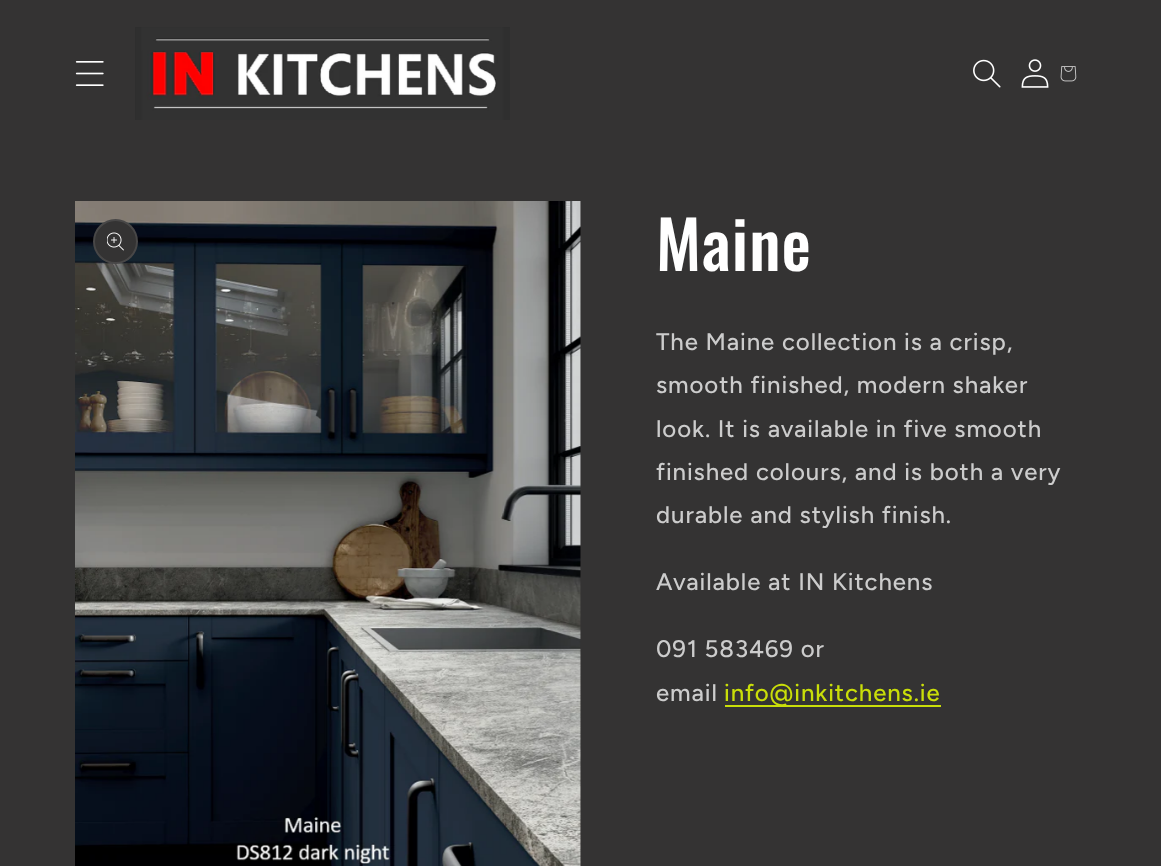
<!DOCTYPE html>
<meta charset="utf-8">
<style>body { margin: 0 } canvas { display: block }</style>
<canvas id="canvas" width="1161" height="866"></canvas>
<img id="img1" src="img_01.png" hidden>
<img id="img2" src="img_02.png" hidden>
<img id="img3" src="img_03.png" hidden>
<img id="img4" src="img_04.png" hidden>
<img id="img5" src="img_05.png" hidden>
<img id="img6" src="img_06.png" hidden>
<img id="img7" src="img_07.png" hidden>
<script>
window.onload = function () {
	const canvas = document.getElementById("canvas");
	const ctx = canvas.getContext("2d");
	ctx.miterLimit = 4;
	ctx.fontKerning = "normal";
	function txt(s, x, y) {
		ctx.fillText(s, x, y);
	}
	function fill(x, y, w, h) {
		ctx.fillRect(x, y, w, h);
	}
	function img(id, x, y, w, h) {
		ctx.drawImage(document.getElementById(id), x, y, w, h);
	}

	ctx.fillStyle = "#343333";
	fill(0, 0, 1161, 866);
	img("img1", 75, 61, 29, 25);
	img("img2", 135, 27, 375, 93);
	img("img3", 973, 59, 28, 29);
	img("img4", 1021, 59, 28, 29);
	img("img5", 1060, 66, 17, 16);
	img("img6", 75, 201, 506, 665);
	ctx.beginPath();
	ctx.arc(115.5, 241.5, 22.5, 0, Math.PI * 2);
	ctx.fill();
	ctx.beginPath();
	ctx.arc(115.5, 241.5, 21.5, 0, Math.PI * 2);
	ctx.strokeStyle = "rgba(255, 255, 255, 0.1)";
	ctx.lineWidth = 2;
	ctx.stroke();
	img("img7", 107, 232, 17, 19);
	ctx.fillStyle = "#C9DE09";
	fill(725, 705, 216, 2);
	ctx.letterSpacing = "1px";
	ctx.font = "500 66px Oswald";
	ctx.fillStyle = "#FFFFFF";
	txt("Maine", 656, 271);
	ctx.letterSpacing = "0.9px";
	ctx.font = "500 24px Figtree";
	ctx.fillStyle = "#CCCCCC";
	txt("The Maine collection is a crisp,", 656, 350);
	txt("smooth finished, modern shaker", 656, 393);
	txt("look. It is available in five smooth", 656, 437);
	txt("finished colours, and is both a very", 656, 480);
	txt("durable and stylish finish.", 656, 523);
	txt("Available at IN Kitchens", 656, 590);
	txt("091 583469 or", 656, 657);
	txt("email", 656, 701);
	ctx.fillStyle = "#C9DE09";
	txt("info@inkitchens.ie", 724, 701);
};
</script>
